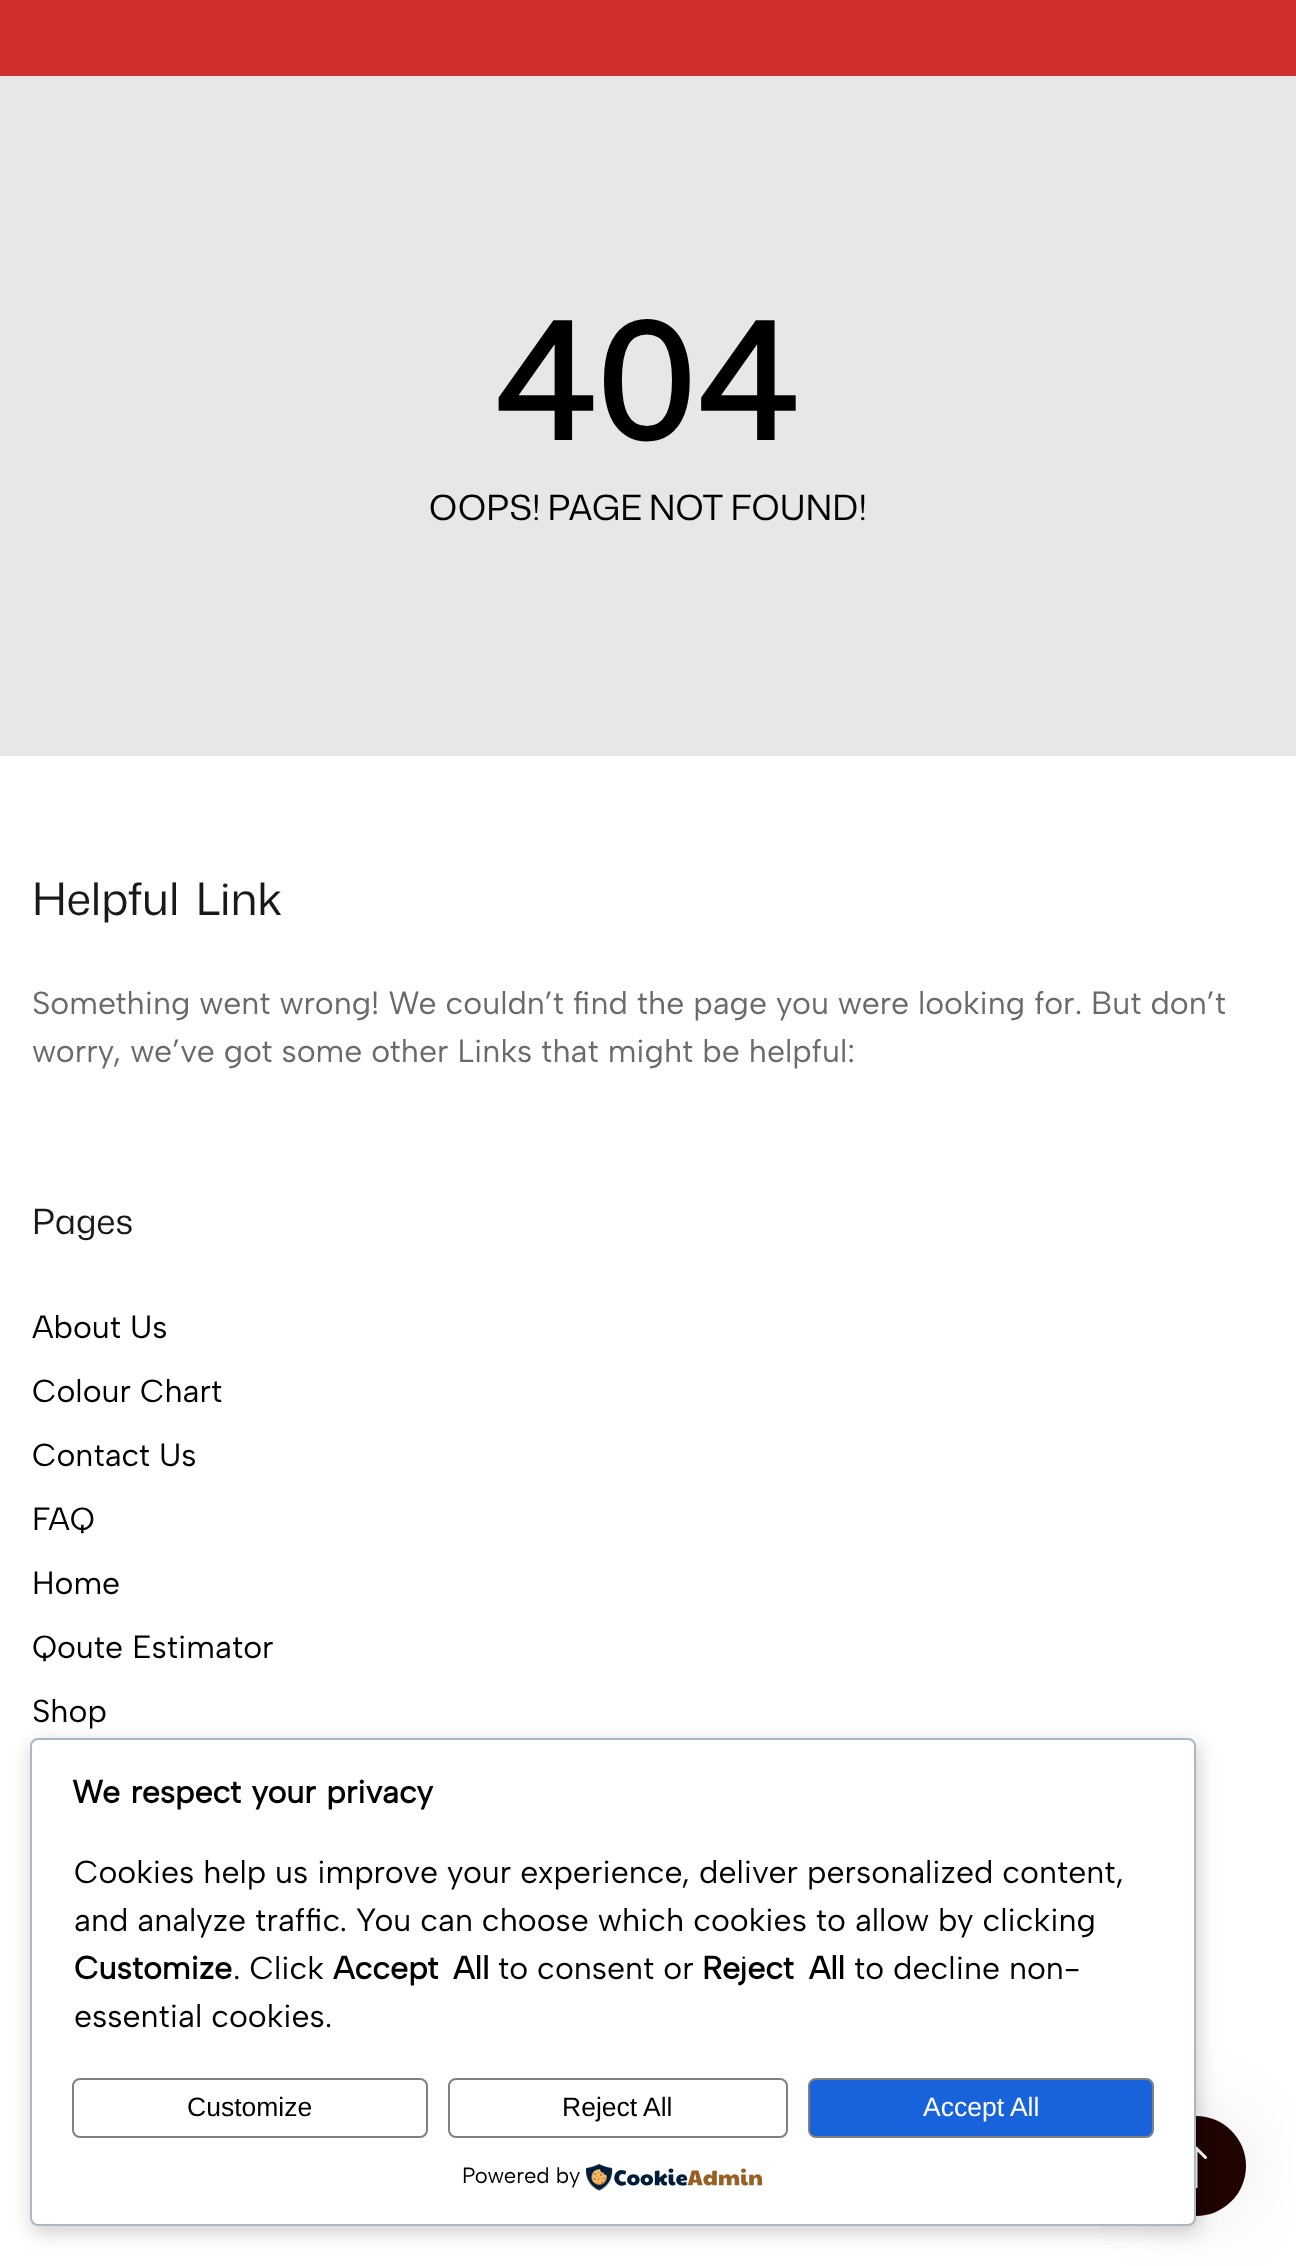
<!DOCTYPE html>
<meta charset="utf-8">
<style>body { margin: 0 } canvas { display: block }</style>
<canvas id="canvas" width="1296" height="2266"></canvas>
<img id="img1" src="img_01.png" hidden>
<img id="img2" src="img_02.png" hidden>
<script>
window.onload = function () {
	const canvas = document.getElementById("canvas");
	const ctx = canvas.getContext("2d");
	ctx.miterLimit = 4;
	ctx.fontKerning = "normal";
	function txt(s, x, y) {
		ctx.fillText(s, x, y);
	}
	function fill(x, y, w, h) {
		ctx.fillRect(x, y, w, h);
	}
	function img(id, x, y, w, h) {
		ctx.drawImage(document.getElementById(id), x, y, w, h);
	}

	ctx.fillStyle = "#FFFFFF";
	fill(0, 0, 1296, 2266);
	ctx.fillStyle = "#CF2E2E";
	fill(0, 0, 1296, 76);
	ctx.fillStyle = "#E9E7E6";
	fill(0, 76, 1296, 680);
	ctx.fillStyle = "rgba(0, 0, 0, 0.09)";
	ctx.filter = "blur(40px)";
	ctx.beginPath();
	ctx.roundRect(1146, 2116, 100, 100, 50);
	ctx.fill();
	ctx.filter = "none";
	ctx.fillStyle = "#1F0401";
	ctx.beginPath();
	ctx.arc(1196, 2166, 50, 0, Math.PI * 2);
	ctx.fill();
	img("img1", 1196, 2146, 11, 42);
	ctx.fillStyle = "rgba(0, 0, 0, 0.2)";
	ctx.filter = "blur(10px)";
	ctx.beginPath();
	ctx.roundRect(32, 1744, 1166, 488, 8);
	ctx.fill();
	ctx.filter = "none";
	ctx.fillStyle = "#FFFFFF";
	ctx.beginPath();
	ctx.roundRect(31, 1739, 1164, 486, 7);
	ctx.fill();
	ctx.strokeStyle = "#ABB8C3";
	ctx.lineWidth = 2;
	ctx.stroke();
	ctx.beginPath();
	ctx.roundRect(73, 2079, 354, 58, 7);
	ctx.strokeStyle = "#808080";
	ctx.stroke();
	ctx.beginPath();
	ctx.roundRect(449, 2079, 338, 58, 7);
	ctx.stroke();
	ctx.fillStyle = "#1863DC";
	ctx.beginPath();
	ctx.roundRect(809, 2079, 344, 58, 7);
	ctx.fill();
	ctx.stroke();
	img("img2", 586, 2164, 177, 27);
	ctx.font = "bold 160px Mona Sans";
	ctx.fillStyle = "#000000";
	txt("404", 494, 440);
	ctx.wordSpacing = "-1px";
	ctx.font = "34.75px Mona Sans";
	txt("OOPS! PAGE NOT FOUND!", 429, 520);
	ctx.wordSpacing = "6px";
	ctx.font = "44.75px Mona Sans";
	ctx.fillStyle = "#18191B";
	txt("Helpful Link", 32, 915);
	ctx.wordSpacing = "0px";
	ctx.font = "32px Albert Sans";
	ctx.fillStyle = "#6A6A6A";
	txt("Something went wrong! We couldn’t find the page you were looking for. But don’t", 32, 1014);
	txt("worry, we’ve got some other Links that might be helpful:", 32, 1062);
	ctx.font = "34.75px Mona Sans";
	ctx.fillStyle = "#18191B";
	txt("Pages", 32, 1234);
	ctx.font = "32px Albert Sans";
	ctx.fillStyle = "#000000";
	txt("About Us", 32, 1338);
	txt("Colour Chart", 32, 1402);
	txt("Contact Us", 32, 1466);
	txt("FAQ", 32, 1530);
	txt("Home", 32, 1594);
	txt("Qoute Estimator", 32, 1658);
	txt("Shop", 32, 1722);
	ctx.wordSpacing = "1.5px";
	ctx.font = "bold 32px Albert Sans";
	txt("We respect your privacy", 72, 1803);
	ctx.wordSpacing = "0px";
	ctx.font = "32px Albert Sans";
	txt("Cookies help us improve your experience, deliver personalized content,", 74, 1883);
	txt("and analyze traffic. You can choose which cookies to allow by clicking", 74, 1931);
	ctx.font = "bold 32px Albert Sans";
	txt("Customize", 74, 1979);
	ctx.font = "32px Albert Sans";
	txt(". Click", 233, 1979);
	ctx.wordSpacing = "6px";
	ctx.font = "bold 32px Albert Sans";
	txt("Accept All", 333, 1979);
	ctx.wordSpacing = "0px";
	ctx.font = "32px Albert Sans";
	txt("to consent or", 498, 1979);
	ctx.wordSpacing = "6px";
	ctx.font = "bold 32px Albert Sans";
	txt("Reject All", 702, 1979);
	ctx.wordSpacing = "0px";
	ctx.font = "32px Albert Sans";
	txt("to decline non-", 854, 1979);
	txt("essential cookies.", 74, 2027);
	ctx.font = "26.5px Liberation Sans";
	txt("Customize", 187, 2116);
	txt("Reject All", 562, 2116);
	ctx.fillStyle = "#FFFFFF";
	txt("Accept All", 923, 2116);
	ctx.font = "22px Albert Sans";
	ctx.fillStyle = "#000000";
	txt("Powered by", 462, 2183);
};
</script>
